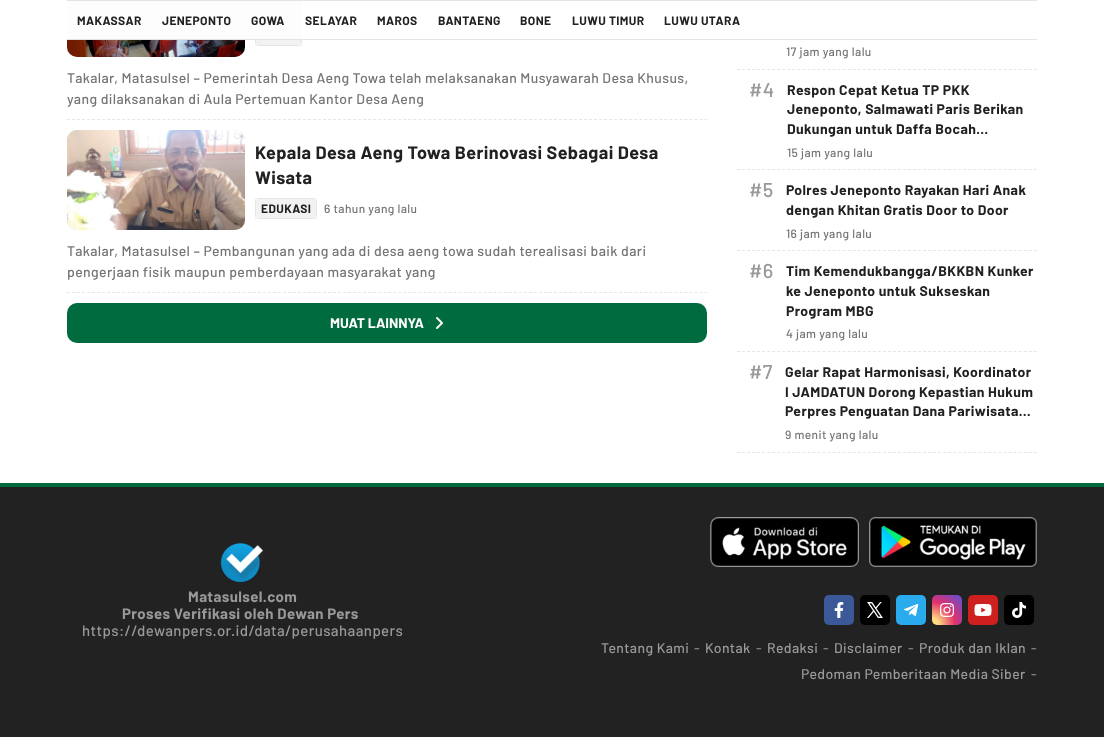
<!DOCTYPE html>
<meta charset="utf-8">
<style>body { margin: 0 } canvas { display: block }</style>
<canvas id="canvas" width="1104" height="737"></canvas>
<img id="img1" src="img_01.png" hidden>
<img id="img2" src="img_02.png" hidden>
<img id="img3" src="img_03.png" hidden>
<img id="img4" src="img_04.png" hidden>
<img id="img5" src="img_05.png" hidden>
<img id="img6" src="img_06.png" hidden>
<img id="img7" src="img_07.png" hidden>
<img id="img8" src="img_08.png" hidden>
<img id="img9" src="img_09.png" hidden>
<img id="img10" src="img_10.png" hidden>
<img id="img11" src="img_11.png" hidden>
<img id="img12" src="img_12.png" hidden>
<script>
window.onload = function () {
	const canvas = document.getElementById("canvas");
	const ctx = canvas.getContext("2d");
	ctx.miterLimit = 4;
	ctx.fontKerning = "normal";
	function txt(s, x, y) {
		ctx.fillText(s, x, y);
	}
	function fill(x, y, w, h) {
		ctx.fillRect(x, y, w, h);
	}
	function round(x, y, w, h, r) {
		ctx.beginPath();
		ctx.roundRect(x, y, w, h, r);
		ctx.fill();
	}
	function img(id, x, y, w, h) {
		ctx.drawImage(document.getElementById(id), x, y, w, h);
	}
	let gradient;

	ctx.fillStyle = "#FFFFFF";
	fill(0, 0, 1104, 737);
	ctx.fillStyle = "#DDDDDD";
	round(67, -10, 178, 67, 10);
	ctx.fillStyle = "#F2F2F2";
	round(255, 25, 47, 21, 5);
	ctx.strokeStyle = "rgba(0, 0, 0, 0.05)";
	ctx.strokeRect(255.5, 25.5, 46, 20);
	ctx.fillStyle = "#FDFDFD";
	fill(67, 1, 235, 38);
	ctx.fillStyle = "#E4E4E4";
	fill(67, 0, 970, 1);
	fill(67, 39, 970, 1);
	ctx.beginPath();
	ctx.moveTo(67, 119.5);
	ctx.lineTo(707, 119.5);
	ctx.strokeStyle = "#E6E6E6";
	ctx.setLineDash([3, 2.02]);
	ctx.stroke();
	img("img1", 67, 40, 178, 17);
	ctx.beginPath();
	ctx.moveTo(67, 292.5);
	ctx.lineTo(707, 292.5);
	ctx.stroke();
	ctx.fillStyle = "#DDDDDD";
	round(67, 130, 178, 100, 10);
	img("img2", 67, 130, 178, 100);
	ctx.fillStyle = "#F2F2F2";
	round(255, 198, 62, 21, 5);
	ctx.strokeStyle = "rgba(0, 0, 0, 0.05)";
	ctx.setLineDash([]);
	ctx.strokeRect(255.5, 198.5, 61, 20);
	ctx.fillStyle = "#006B3E";
	round(67, 303, 640, 40, 10);
	img("img3", 436, 317, 7, 12);
	ctx.beginPath();
	ctx.moveTo(737, 69.5);
	ctx.lineTo(1037, 69.5);
	ctx.strokeStyle = "#E6E6E6";
	ctx.setLineDash([3, 2.03]);
	ctx.stroke();
	ctx.beginPath();
	ctx.moveTo(737, 169.5);
	ctx.lineTo(1037, 169.5);
	ctx.stroke();
	ctx.beginPath();
	ctx.moveTo(737, 250.5);
	ctx.lineTo(1037, 250.5);
	ctx.stroke();
	ctx.beginPath();
	ctx.moveTo(737, 351.5);
	ctx.lineTo(1037, 351.5);
	ctx.stroke();
	ctx.beginPath();
	ctx.moveTo(737, 452.5);
	ctx.lineTo(1037, 452.5);
	ctx.stroke();
	ctx.fillStyle = "#222222";
	fill(0, 487, 1104, 250);
	ctx.fillStyle = "#006B3E";
	fill(0, 483, 1104, 4);
	img("img4", 220, 543, 44, 40);
	img("img5", 710, 517, 149, 50);
	img("img6", 869, 517, 168, 50);
	ctx.fillStyle = "#3B5998";
	round(824, 595, 30, 30, 5);
	img("img7", 834, 602, 10, 16);
	ctx.fillStyle = "#000000";
	round(860, 595, 30, 30, 5);
	img("img8", 867, 602, 16, 16);
	ctx.fillStyle = "#2AABEE";
	round(896, 595, 30, 30, 5);
	img("img9", 903, 604, 16, 12);
	gradient = ctx.createRadialGradient(932, 625, 0, 932, 625, 42);
	gradient.addColorStop(0.15, "#FFDC80");
	gradient.addColorStop(0.55, "#E1306C");
	gradient.addColorStop(1, "#5851DB");
	ctx.fillStyle = gradient;
	round(932, 595, 30, 30, 5);
	img("img10", 940, 603, 14, 14);
	ctx.fillStyle = "#CD201F";
	round(968, 595, 30, 30, 5);
	img("img11", 974, 604, 18, 12);
	ctx.fillStyle = "#000000";
	round(1004, 595, 30, 30, 5);
	img("img12", 1012, 602, 14, 16);
	ctx.letterSpacing = "0.4px";
	ctx.font = "bold 12px Barlow";
	ctx.fillStyle = "#212121";
	txt("MAKASSAR", 77, 25);
	txt("JENEPONTO", 162, 25);
	txt("GOWA", 251, 25);
	txt("SELAYAR", 305, 25);
	txt("MAROS", 377, 25);
	txt("BANTAENG", 438, 25);
	txt("BONE", 520, 25);
	txt("LUWU TIMUR", 572, 25);
	txt("LUWU UTARA", 664, 25);
	ctx.font = "500 14px Barlow";
	ctx.fillStyle = "#757575";
	txt("Takalar, Matasulsel – Pemerintah Desa Aeng Towa telah melaksanakan Musyawarah Desa Khusus,", 67, 83);
	txt("yang dilaksanakan di Aula Pertemuan Kantor Desa Aeng", 67, 104);
	ctx.font = "bold 18px Barlow";
	ctx.fillStyle = "#212121";
	txt("Kepala Desa Aeng Towa Berinovasi Sebagai Desa", 255, 159);
	txt("Wisata", 255, 184);
	ctx.font = "bold 12px Barlow";
	txt("EDUKASI", 261, 213);
	ctx.font = "500 12px Barlow";
	ctx.fillStyle = "#757575";
	txt("6 tahun yang lalu", 324, 213);
	ctx.font = "500 14px Barlow";
	txt("Takalar, Matasulsel – Pembangunan yang ada di desa aeng towa sudah terealisasi baik dari", 67, 256);
	txt("pengerjaan fisik maupun pemberdayaan masyarakat yang", 67, 277);
	ctx.letterSpacing = "0px";
	ctx.font = "bold 14px Barlow";
	ctx.fillStyle = "#FDFDFD";
	txt("MUAT LAINNYA", 330, 328);
	ctx.letterSpacing = "0.4px";
	ctx.font = "500 12px Barlow";
	ctx.fillStyle = "#757575";
	txt("17 jam yang lalu", 786, 56);
	ctx.font = "500 20px Barlow";
	ctx.fillStyle = "#999999";
	txt("#4", 749, 97);
	ctx.font = "bold 14px Barlow";
	ctx.fillStyle = "#212121";
	txt("Respon Cepat Ketua TP PKK", 787, 95);
	txt("Jeneponto, Salmawati Paris Berikan", 787, 114);
	txt("Dukungan untuk Daffa Bocah…", 787, 134);
	ctx.font = "500 12px Barlow";
	ctx.fillStyle = "#757575";
	txt("15 jam yang lalu", 787, 157);
	ctx.font = "500 20px Barlow";
	ctx.fillStyle = "#999999";
	txt("#5", 749, 197);
	ctx.font = "bold 14px Barlow";
	ctx.fillStyle = "#212121";
	txt("Polres Jeneponto Rayakan Hari Anak", 786, 195);
	txt("dengan Khitan Gratis Door to Door", 786, 215);
	ctx.font = "500 12px Barlow";
	ctx.fillStyle = "#757575";
	txt("16 jam yang lalu", 786, 238);
	ctx.font = "500 20px Barlow";
	ctx.fillStyle = "#999999";
	txt("#6", 749, 278);
	ctx.font = "bold 14px Barlow";
	ctx.fillStyle = "#212121";
	txt("Tim Kemendukbangga/BKKBN Kunker", 786, 276);
	txt("ke Jeneponto untuk Sukseskan", 786, 296);
	txt("Program MBG", 786, 316);
	ctx.font = "500 12px Barlow";
	ctx.fillStyle = "#757575";
	txt("4 jam yang lalu", 786, 338);
	ctx.font = "500 20px Barlow";
	ctx.fillStyle = "#999999";
	txt("#7", 749, 379);
	ctx.font = "bold 14px Barlow";
	ctx.fillStyle = "#212121";
	txt("Gelar Rapat Harmonisasi, Koordinator", 785, 377);
	txt("I JAMDATUN Dorong Kepastian Hukum", 785, 397);
	txt("Perpres Penguatan Dana Pariwisata…", 785, 416);
	ctx.font = "500 12px Barlow";
	ctx.fillStyle = "#757575";
	txt("9 menit yang lalu", 785, 439);
	ctx.font = "bold 15px Barlow";
	ctx.fillStyle = "#999999";
	txt("Matasulsel.com", 188, 602);
	txt("Proses Verifikasi oleh Dewan Pers", 122, 619);
	ctx.font = "500 15px Barlow";
	txt("https://dewanpers.or.id/data/perusahaanpers", 82, 636);
	ctx.font = "500 14px Barlow";
	txt("Tentang Kami", 601, 653);
	txt("-", 694, 653);
	txt("Kontak", 705, 653);
	txt("-", 756, 653);
	txt("Redaksi", 767, 653);
	txt("-", 823, 653);
	txt("Disclaimer", 834, 653);
	txt("-", 908, 653);
	txt("Produk dan Iklan", 919, 653);
	txt("-", 1031, 653);
	txt("Pedoman Pemberitaan Media Siber", 801, 679);
	txt("-", 1031, 679);
};
</script>
